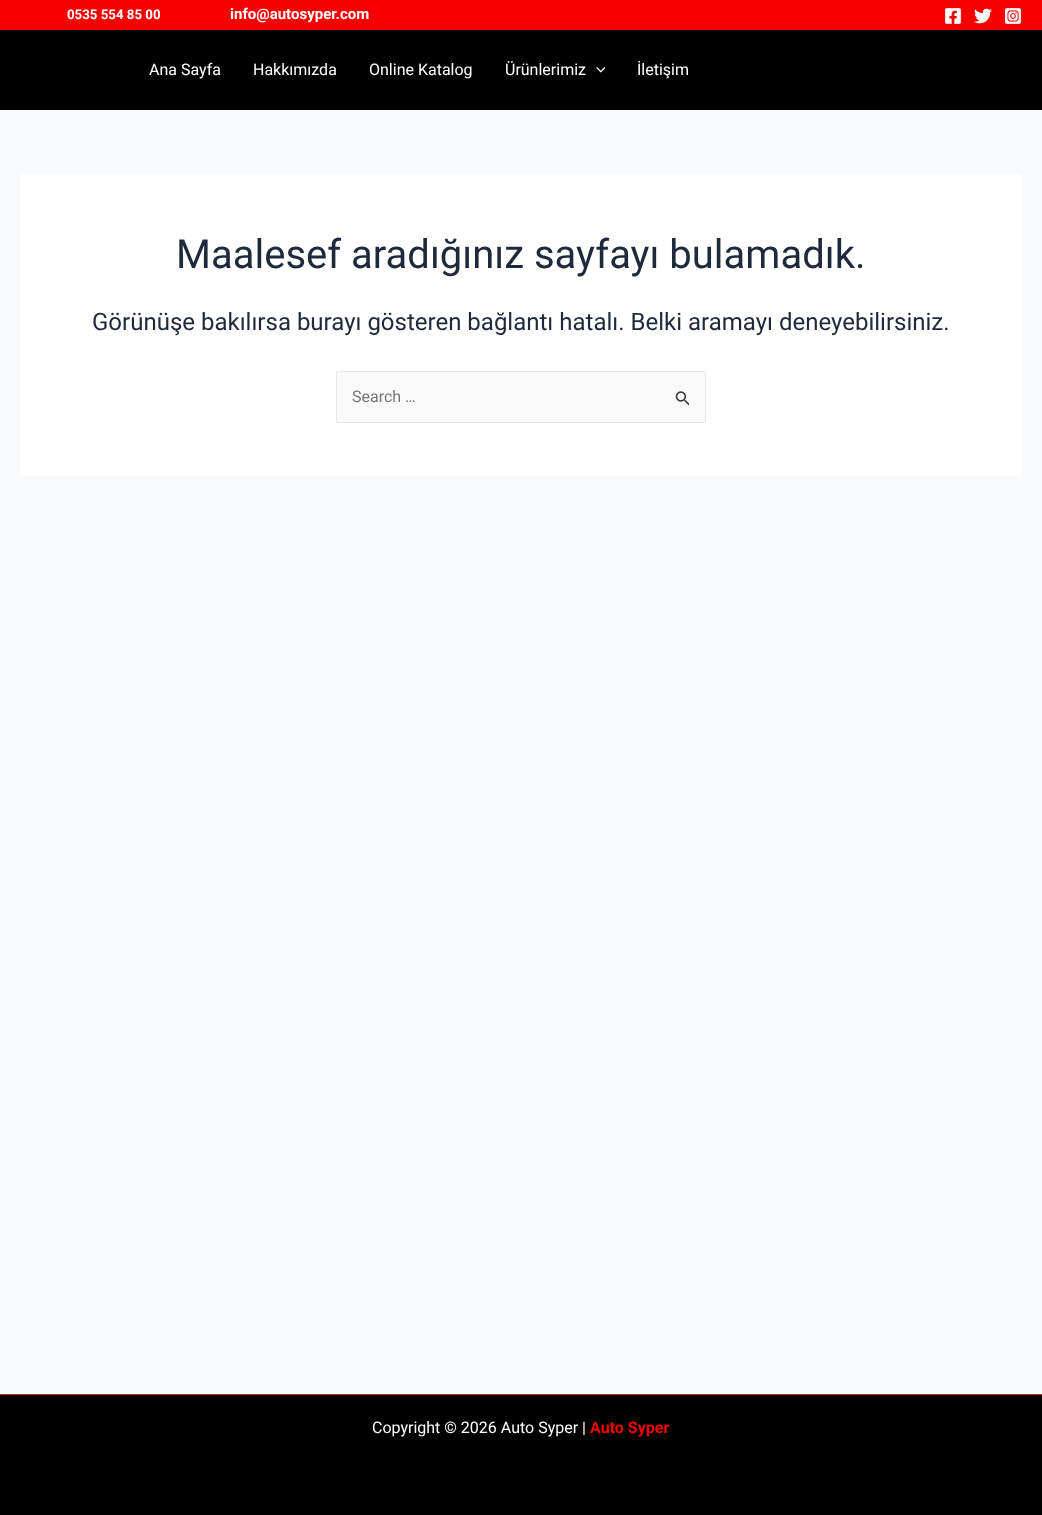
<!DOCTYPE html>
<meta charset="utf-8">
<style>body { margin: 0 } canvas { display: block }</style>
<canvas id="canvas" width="1042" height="1515"></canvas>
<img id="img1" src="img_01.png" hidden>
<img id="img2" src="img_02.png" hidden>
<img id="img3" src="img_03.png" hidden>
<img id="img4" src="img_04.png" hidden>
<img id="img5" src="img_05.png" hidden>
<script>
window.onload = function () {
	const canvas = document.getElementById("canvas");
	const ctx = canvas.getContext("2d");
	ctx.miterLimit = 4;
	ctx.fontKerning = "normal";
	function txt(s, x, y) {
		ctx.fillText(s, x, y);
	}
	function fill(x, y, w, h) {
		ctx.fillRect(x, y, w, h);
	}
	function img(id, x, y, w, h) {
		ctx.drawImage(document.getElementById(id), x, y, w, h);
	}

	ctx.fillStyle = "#F9FAFB";
	fill(0, 0, 1042, 1515);
	ctx.fillStyle = "#F70000";
	fill(0, 0, 1042, 30);
	img("img1", 945, 8, 16, 16);
	img("img2", 974, 8, 18, 16);
	img("img3", 1005, 8, 16, 16);
	ctx.fillStyle = "#000000";
	fill(0, 30, 1042, 80);
	img("img4", 596, 67, 9, 6);
	ctx.fillStyle = "#FFFFFF";
	fill(20, 174, 1002, 302);
	ctx.fillStyle = "#FAFAFA";
	ctx.beginPath();
	ctx.roundRect(336.5, 371.5, 369, 51, 1.5);
	ctx.fill();
	ctx.strokeStyle = "#E2E8F0";
	ctx.stroke();
	img("img5", 675, 391, 14, 15);
	ctx.fillStyle = "#000000";
	fill(0, 1395, 1042, 120);
	ctx.fillStyle = "#D12704";
	fill(0, 1394, 1042, 1);
	ctx.font = "bold 13.25px Roboto";
	ctx.fillStyle = "#FFFFFF";
	txt("0535 554 85 00", 67, 19);
	ctx.font = "bold 15px Roboto";
	txt("info@autosyper.com", 230, 19);
	ctx.font = "16px Roboto";
	txt("Ana Sayfa", 149, 75);
	txt("Hakkımızda", 253, 75);
	txt("Online Katalog", 369, 75);
	txt("Ürünlerimiz", 505, 75);
	txt("İletişim", 637, 75);
	ctx.font = "40px Roboto";
	ctx.fillStyle = "#1E293B";
	txt("Maalesef aradığınız sayfayı bulamadık.", 176, 268);
	ctx.font = "24px Roboto";
	txt("Görünüşe bakılırsa burayı gösteren bağlantı hatalı. Belki aramayı deneyebilirsiniz.", 92, 330);
	ctx.font = "16px Roboto";
	ctx.fillStyle = "#757575";
	txt("Search …", 352, 402);
	ctx.fillStyle = "#FFFFFF";
	txt("Copyright © 2026 Auto Syper |", 372, 1433);
	ctx.font = "bold 16px Roboto";
	ctx.fillStyle = "#F70000";
	txt("Auto Syper", 590, 1433);
};
</script>
